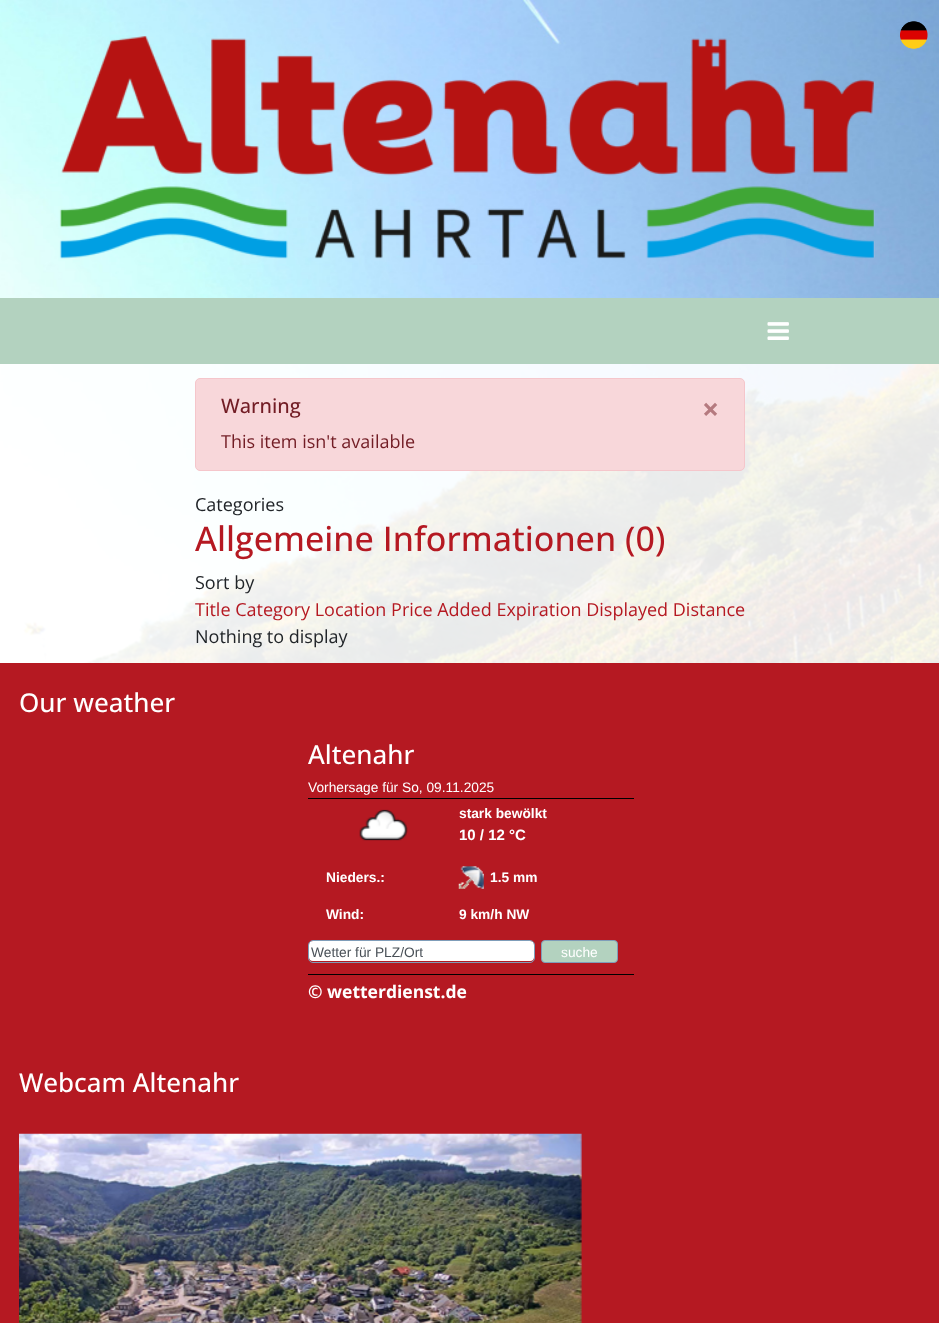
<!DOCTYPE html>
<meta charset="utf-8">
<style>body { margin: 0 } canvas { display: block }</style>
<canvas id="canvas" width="939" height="1323"></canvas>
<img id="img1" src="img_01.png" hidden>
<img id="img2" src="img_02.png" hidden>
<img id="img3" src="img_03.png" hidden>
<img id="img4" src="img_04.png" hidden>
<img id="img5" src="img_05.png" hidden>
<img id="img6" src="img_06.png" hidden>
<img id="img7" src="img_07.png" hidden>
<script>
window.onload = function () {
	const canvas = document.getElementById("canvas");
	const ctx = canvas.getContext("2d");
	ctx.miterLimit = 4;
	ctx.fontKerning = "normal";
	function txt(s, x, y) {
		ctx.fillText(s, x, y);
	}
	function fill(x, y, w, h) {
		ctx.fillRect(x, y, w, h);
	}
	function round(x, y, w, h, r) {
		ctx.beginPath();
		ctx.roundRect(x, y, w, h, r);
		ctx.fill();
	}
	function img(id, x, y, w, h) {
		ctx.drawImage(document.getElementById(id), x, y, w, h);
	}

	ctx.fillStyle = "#FFFFFF";
	fill(0, 0, 939, 1323);
	img("img1", 0, 0, 939, 663);
	ctx.fillStyle = "#B3D2BF";
	fill(0, 298, 939, 66);
	img("img2", 900, 21, 28, 28);
	img("img3", 767, 322, 22, 18);
	img("img4", 59, 36, 816, 223);
	ctx.fillStyle = "rgba(255, 255, 255, 0.9)";
	fill(0, 364, 939, 1);
	fill(0, 365, 939, 298);
	ctx.fillStyle = "#F8D7DA";
	ctx.beginPath();
	ctx.roundRect(195.5, 378.5, 549, 92, 4.5);
	ctx.fill();
	ctx.strokeStyle = "#F5C6CB";
	ctx.stroke();
	ctx.fillStyle = "#B51922";
	fill(0, 663, 939, 660);
	ctx.fillStyle = "#000000";
	fill(308, 798, 326, 1);
	img("img5", 359, 809, 49, 32);
	img("img6", 458, 866, 26, 23);
	ctx.fillStyle = "#FFFFFF";
	round(309, 941, 225, 20, 4);
	ctx.beginPath();
	ctx.roundRect(308.5, 940.5, 226, 22, 4.5);
	ctx.strokeStyle = "#7F9DB9";
	ctx.stroke();
	ctx.fillStyle = "#B3D2BF";
	ctx.beginPath();
	ctx.roundRect(541.5, 940.5, 76, 22, 3.5);
	ctx.fill();
	ctx.stroke();
	ctx.fillStyle = "#000000";
	fill(308, 974, 326, 1);
	img("img7", 19, 1133, 563, 190);
	ctx.font = "500 20px Open Sans";
	ctx.fillStyle = "#721C24";
	txt("Warning", 221, 413);
	ctx.font = "bold 30px Open Sans";
	ctx.fillStyle = "#B57A7F";
	txt("×", 702, 420);
	ctx.font = "18px Open Sans";
	ctx.fillStyle = "#721C24";
	txt("This item isn't available", 221, 448);
	ctx.fillStyle = "#212529";
	txt("Categories", 195, 511);
	ctx.font = "500 34px Open Sans";
	ctx.fillStyle = "#B51922";
	txt("Allgemeine Informationen (0)", 195, 551);
	ctx.font = "18px Open Sans";
	ctx.fillStyle = "#212529";
	txt("Sort by", 195, 589);
	ctx.fillStyle = "#B51922";
	txt("Title Category Location Price Added Expiration Displayed Distance", 195, 616);
	ctx.fillStyle = "#212529";
	txt("Nothing to display", 195, 643);
	ctx.font = "500 26px Open Sans";
	ctx.fillStyle = "#FFFFFF";
	txt("Our weather", 19, 712);
	txt("Altenahr", 308, 764);
	ctx.font = "13.75px Liberation Sans";
	txt("Vorhersage für So, 09.11.2025", 308, 792);
	ctx.font = "bold 13.75px Liberation Sans";
	txt("stark bewölkt", 459, 818);
	ctx.font = "bold 15px Liberation Sans";
	txt("10 / 12 °C", 459, 840);
	ctx.font = "bold 13.75px Liberation Sans";
	txt("Nieders.:", 326, 882);
	txt("1.5 mm", 490, 882);
	txt("Wind:", 326, 919);
	txt("9 km/h NW", 459, 919);
	ctx.font = "13.75px Liberation Sans";
	ctx.fillStyle = "#495057";
	txt("Wetter für PLZ/Ort", 311, 957);
	ctx.fillStyle = "#FFFFFF";
	txt("suche", 561, 957);
	ctx.font = "bold 17.5px Open Sans";
	txt("© wetterdienst.de", 308, 998);
	ctx.font = "500 26px Open Sans";
	txt("Webcam Altenahr", 19, 1092);
};
</script>
